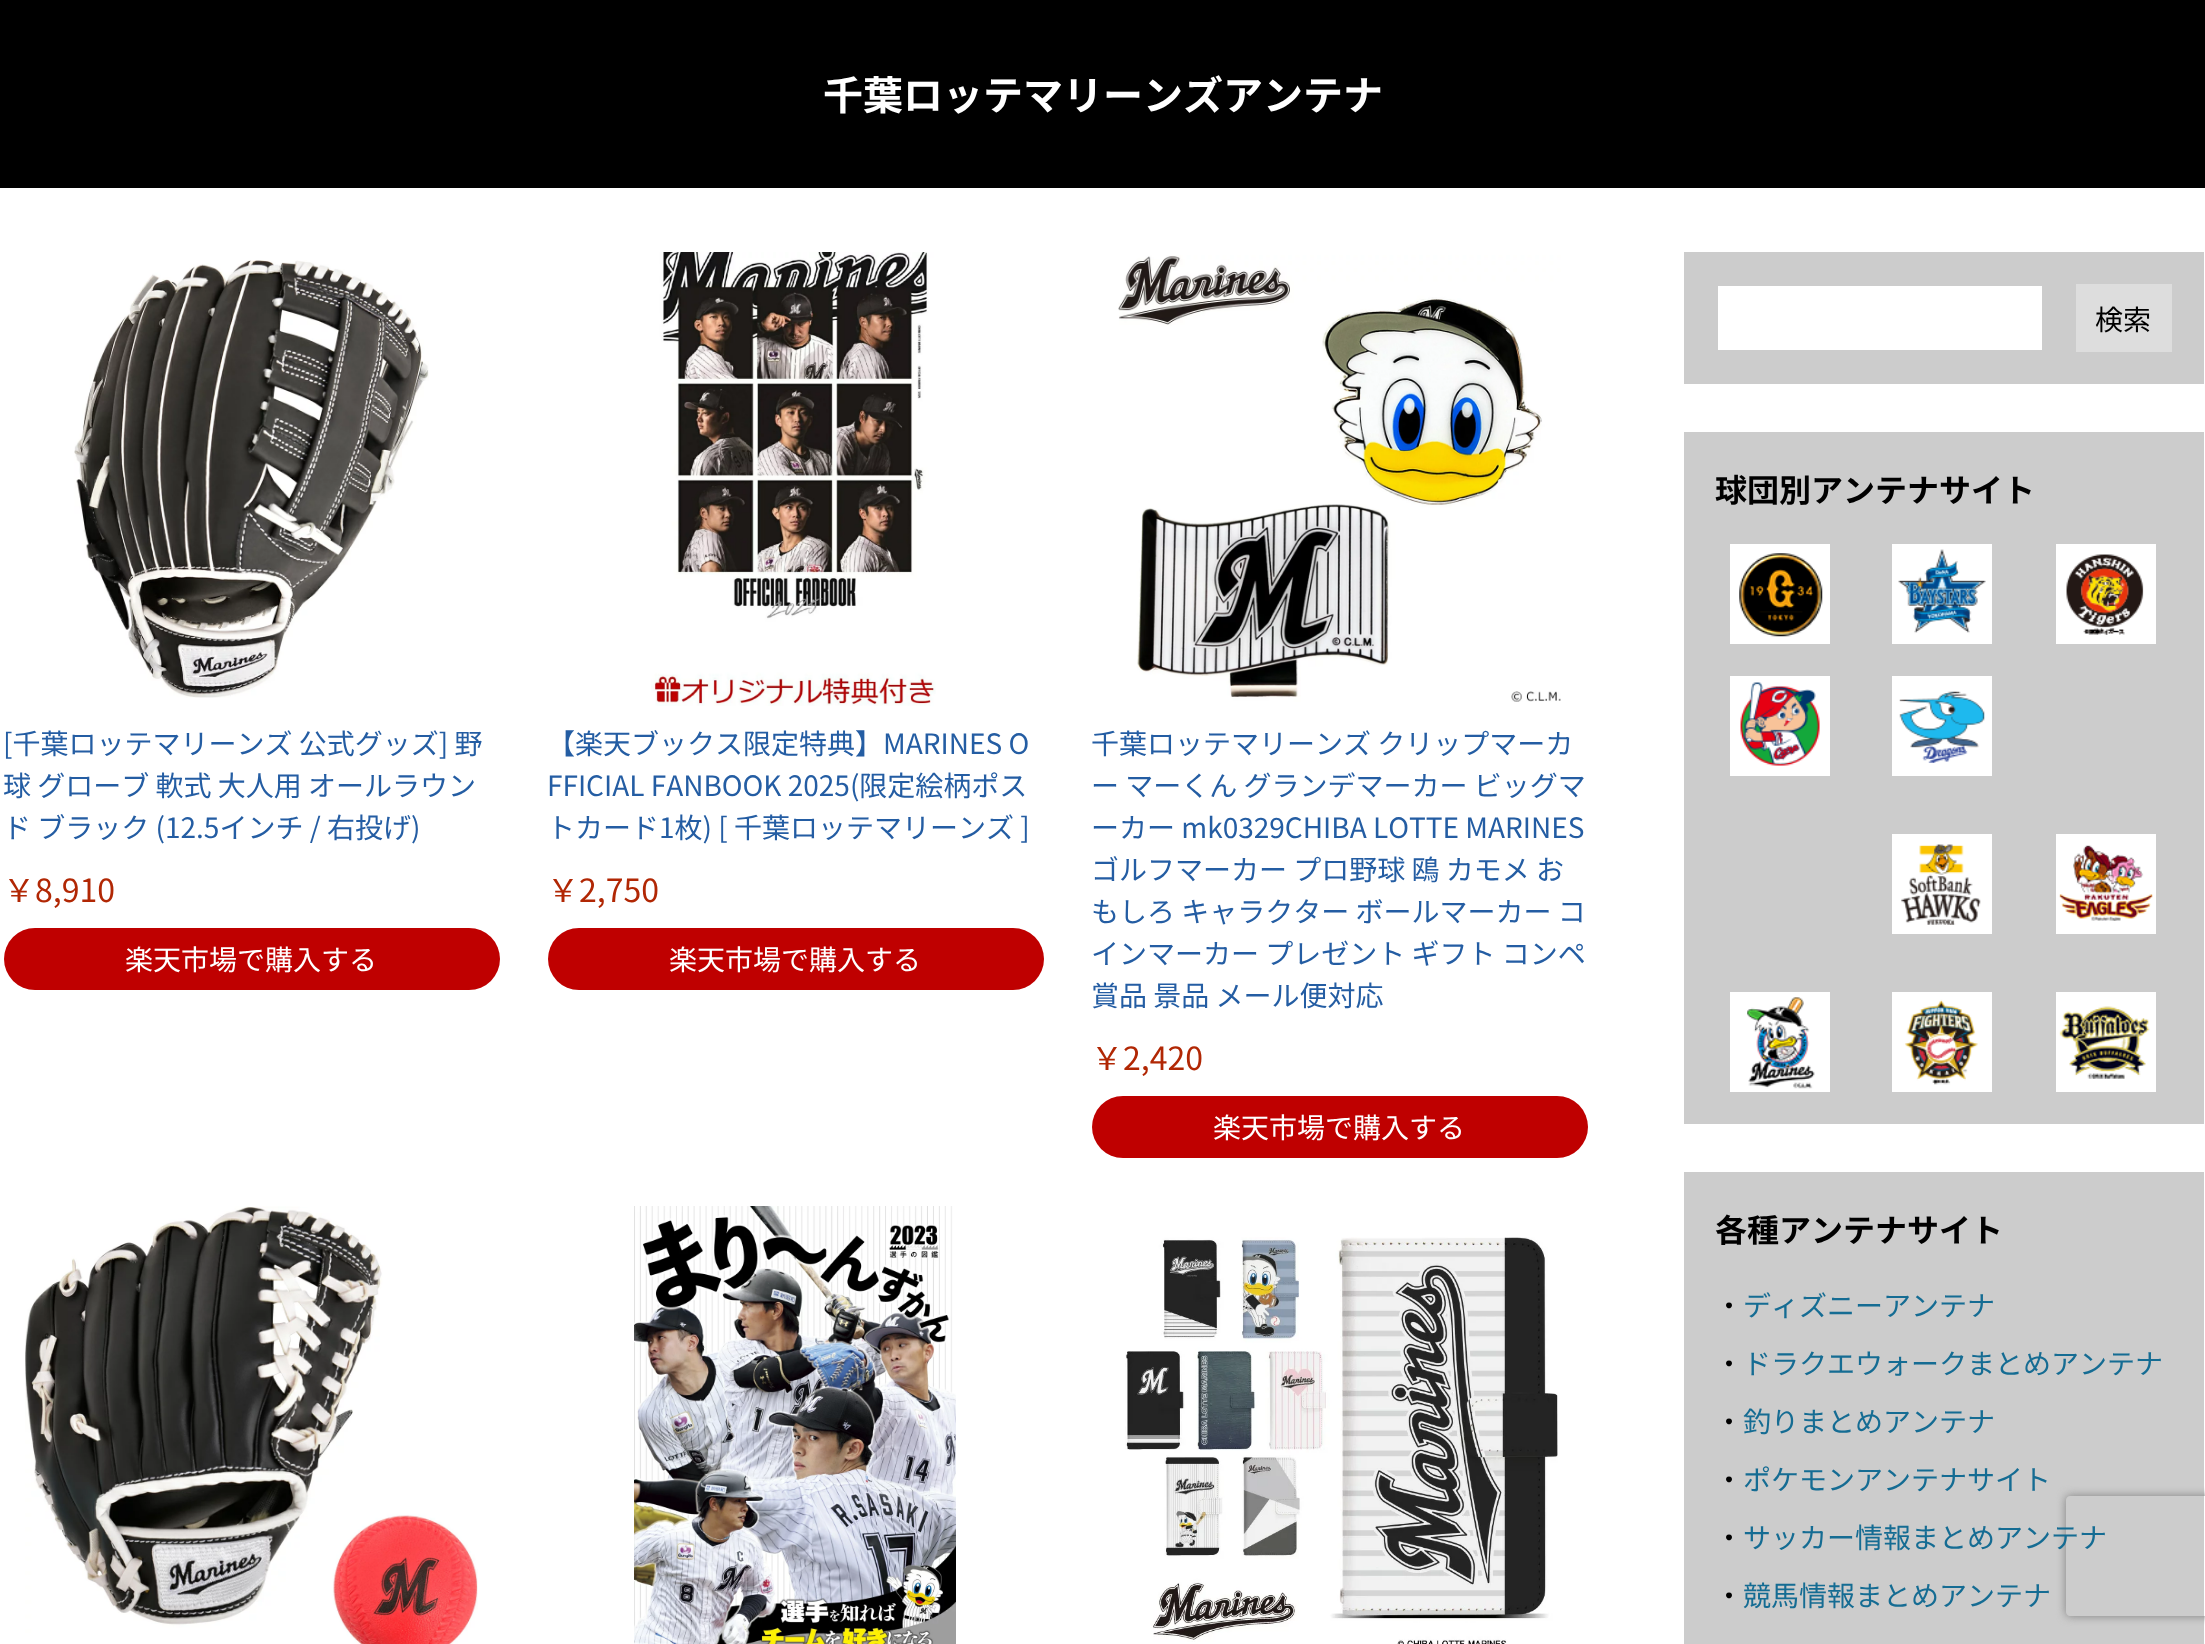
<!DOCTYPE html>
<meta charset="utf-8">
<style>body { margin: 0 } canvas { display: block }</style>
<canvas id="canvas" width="2205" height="1644"></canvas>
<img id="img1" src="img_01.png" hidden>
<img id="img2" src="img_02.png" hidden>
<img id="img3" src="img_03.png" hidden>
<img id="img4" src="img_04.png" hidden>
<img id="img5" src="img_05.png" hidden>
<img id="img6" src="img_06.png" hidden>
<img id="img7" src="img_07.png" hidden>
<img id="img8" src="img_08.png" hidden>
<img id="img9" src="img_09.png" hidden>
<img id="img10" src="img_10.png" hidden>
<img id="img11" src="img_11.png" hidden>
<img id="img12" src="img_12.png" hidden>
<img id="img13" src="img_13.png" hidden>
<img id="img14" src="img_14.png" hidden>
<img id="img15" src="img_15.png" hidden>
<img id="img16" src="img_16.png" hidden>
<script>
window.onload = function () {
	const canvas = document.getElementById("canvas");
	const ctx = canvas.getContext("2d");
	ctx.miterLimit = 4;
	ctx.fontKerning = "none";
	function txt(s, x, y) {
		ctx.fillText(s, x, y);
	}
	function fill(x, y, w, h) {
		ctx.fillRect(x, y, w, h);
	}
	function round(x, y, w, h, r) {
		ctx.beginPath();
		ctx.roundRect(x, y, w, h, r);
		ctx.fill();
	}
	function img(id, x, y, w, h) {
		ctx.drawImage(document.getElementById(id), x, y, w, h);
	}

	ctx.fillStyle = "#FFFFFF";
	fill(0, 0, 2205, 1644);
	ctx.fillStyle = "#000000";
	fill(0, 0, 2205, 188);
	img("img1", 74, 260, 355, 438);
	ctx.fillStyle = "#BF0000";
	round(4, 928, 496, 62, 31);
	img("img2", 651, 252, 285, 454);
	round(548, 928, 496, 62, 31);
	img("img3", 1118, 255, 443, 447);
	round(1092, 1096, 496, 62, 31);
	img("img4", 25, 1206, 453, 438);
	img("img5", 634, 1206, 322, 438);
	img("img6", 1125, 1237, 433, 407);
	ctx.fillStyle = "#CCCCCC";
	fill(1684, 252, 520, 132);
	ctx.fillStyle = "#FFFFFF";
	fill(1718, 286, 324, 64);
	ctx.fillStyle = "#DDDDDD";
	fill(2076, 284, 96, 68);
	ctx.fillStyle = "#CCCCCC";
	fill(1684, 432, 520, 692);
	img("img7", 1730, 544, 100, 100);
	img("img8", 1892, 544, 100, 100);
	img("img9", 2056, 544, 100, 100);
	img("img10", 1730, 676, 100, 100);
	img("img11", 1892, 676, 100, 100);
	img("img12", 1892, 834, 100, 100);
	img("img13", 2056, 834, 100, 100);
	img("img14", 1730, 992, 100, 100);
	img("img15", 1892, 992, 100, 100);
	img("img16", 2056, 992, 100, 100);
	fill(1684, 1172, 520, 472);
	ctx.save();
	ctx.beginPath();
	ctx.moveTo(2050, 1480);
	ctx.lineTo(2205, 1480);
	ctx.lineTo(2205, 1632);
	ctx.lineTo(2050, 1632);
	ctx.closePath();
	ctx.moveTo(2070, 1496);
	ctx.lineTo(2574, 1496);
	ctx.bezierCurveTo(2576, 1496, 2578, 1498, 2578, 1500);
	ctx.lineTo(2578, 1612);
	ctx.bezierCurveTo(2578, 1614, 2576, 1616, 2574, 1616);
	ctx.lineTo(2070, 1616);
	ctx.bezierCurveTo(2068, 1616, 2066, 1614, 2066, 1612);
	ctx.lineTo(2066, 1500);
	ctx.bezierCurveTo(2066, 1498, 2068, 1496, 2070, 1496);
	ctx.closePath();
	ctx.clip("evenodd");
	ctx.fillStyle = "#808080";
	ctx.filter = "blur(5px)";
	ctx.beginPath();
	ctx.roundRect(2066, 1496, 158, 120, 4);
	ctx.fill();
	ctx.filter = "none";
	ctx.restore();
	ctx.font = "bold 40px Noto Sans JP";
	ctx.fillStyle = "#FFFFFF";
	txt("千葉ロッテマリーンズアンテナ", 823, 110);
	ctx.font = "28px Noto Sans JP";
	ctx.fillStyle = "#245DA3";
	txt("[千葉ロッテマリーンズ 公式グッズ] 野", 3, 754);
	txt("球 グローブ 軟式 大人用 オールラウン", 3, 796);
	txt("ド ブラック (12.5インチ / 右投げ)", 3, 838);
	ctx.font = "32px Noto Sans JP";
	ctx.fillStyle = "#B12704";
	txt("￥8,910", 3, 902);
	ctx.font = "28px Noto Sans JP";
	ctx.fillStyle = "#FFFFFF";
	txt("楽天市場で購入する", 125, 970);
	ctx.fillStyle = "#245DA3";
	txt("【楽天ブックス限定特典】MARINES O", 547, 754);
	txt("FFICIAL FANBOOK 2025(限定絵柄ポス", 547, 796);
	txt("トカード1枚) [ 千葉ロッテマリーンズ ]", 547, 838);
	ctx.font = "32px Noto Sans JP";
	ctx.fillStyle = "#B12704";
	txt("￥2,750", 547, 902);
	ctx.font = "28px Noto Sans JP";
	ctx.fillStyle = "#FFFFFF";
	txt("楽天市場で購入する", 669, 970);
	ctx.fillStyle = "#245DA3";
	txt("千葉ロッテマリーンズ クリップマーカ", 1091, 754);
	txt("ー マーくん グランデマーカー ビッグマ", 1091, 796);
	txt("ーカー mk0329CHIBA LOTTE MARINES", 1091, 838);
	txt("ゴルフマーカー プロ野球 鴎 カモメ お", 1091, 880);
	txt("もしろ キャラクター ボールマーカー コ", 1091, 922);
	txt("インマーカー プレゼント ギフト コンペ", 1091, 964);
	txt("賞品 景品 メール便対応", 1091, 1006);
	ctx.font = "32px Noto Sans JP";
	ctx.fillStyle = "#B12704";
	txt("￥2,420", 1091, 1070);
	ctx.font = "28px Noto Sans JP";
	ctx.fillStyle = "#FFFFFF";
	txt("楽天市場で購入する", 1213, 1138);
	ctx.fillStyle = "#000000";
	txt("検索", 2095, 330);
	ctx.font = "bold 32px Noto Sans JP";
	txt("球団別アンテナサイト", 1715, 502);
	txt("各種アンテナサイト", 1715, 1242);
	ctx.font = "28px Noto Sans JP";
	txt("・", 1715, 1316);
	ctx.fillStyle = "#156C93";
	txt("ディズニーアンテナ", 1743, 1316);
	ctx.fillStyle = "#000000";
	txt("・", 1715, 1374);
	ctx.fillStyle = "#156C93";
	txt("ドラクエウォークまとめアンテナ", 1743, 1374);
	ctx.fillStyle = "#000000";
	txt("・", 1715, 1432);
	ctx.fillStyle = "#156C93";
	txt("釣りまとめアンテナ", 1743, 1432);
	ctx.fillStyle = "#000000";
	txt("・", 1715, 1490);
	ctx.fillStyle = "#156C93";
	txt("ポケモンアンテナサイト", 1743, 1490);
	ctx.fillStyle = "#000000";
	txt("・", 1715, 1548);
	ctx.fillStyle = "#156C93";
	txt("サッカー情報まとめアンテナ", 1743, 1548);
	ctx.fillStyle = "#000000";
	txt("・", 1715, 1606);
	ctx.fillStyle = "#156C93";
	txt("競馬情報まとめアンテナ", 1743, 1606);
};
</script>
